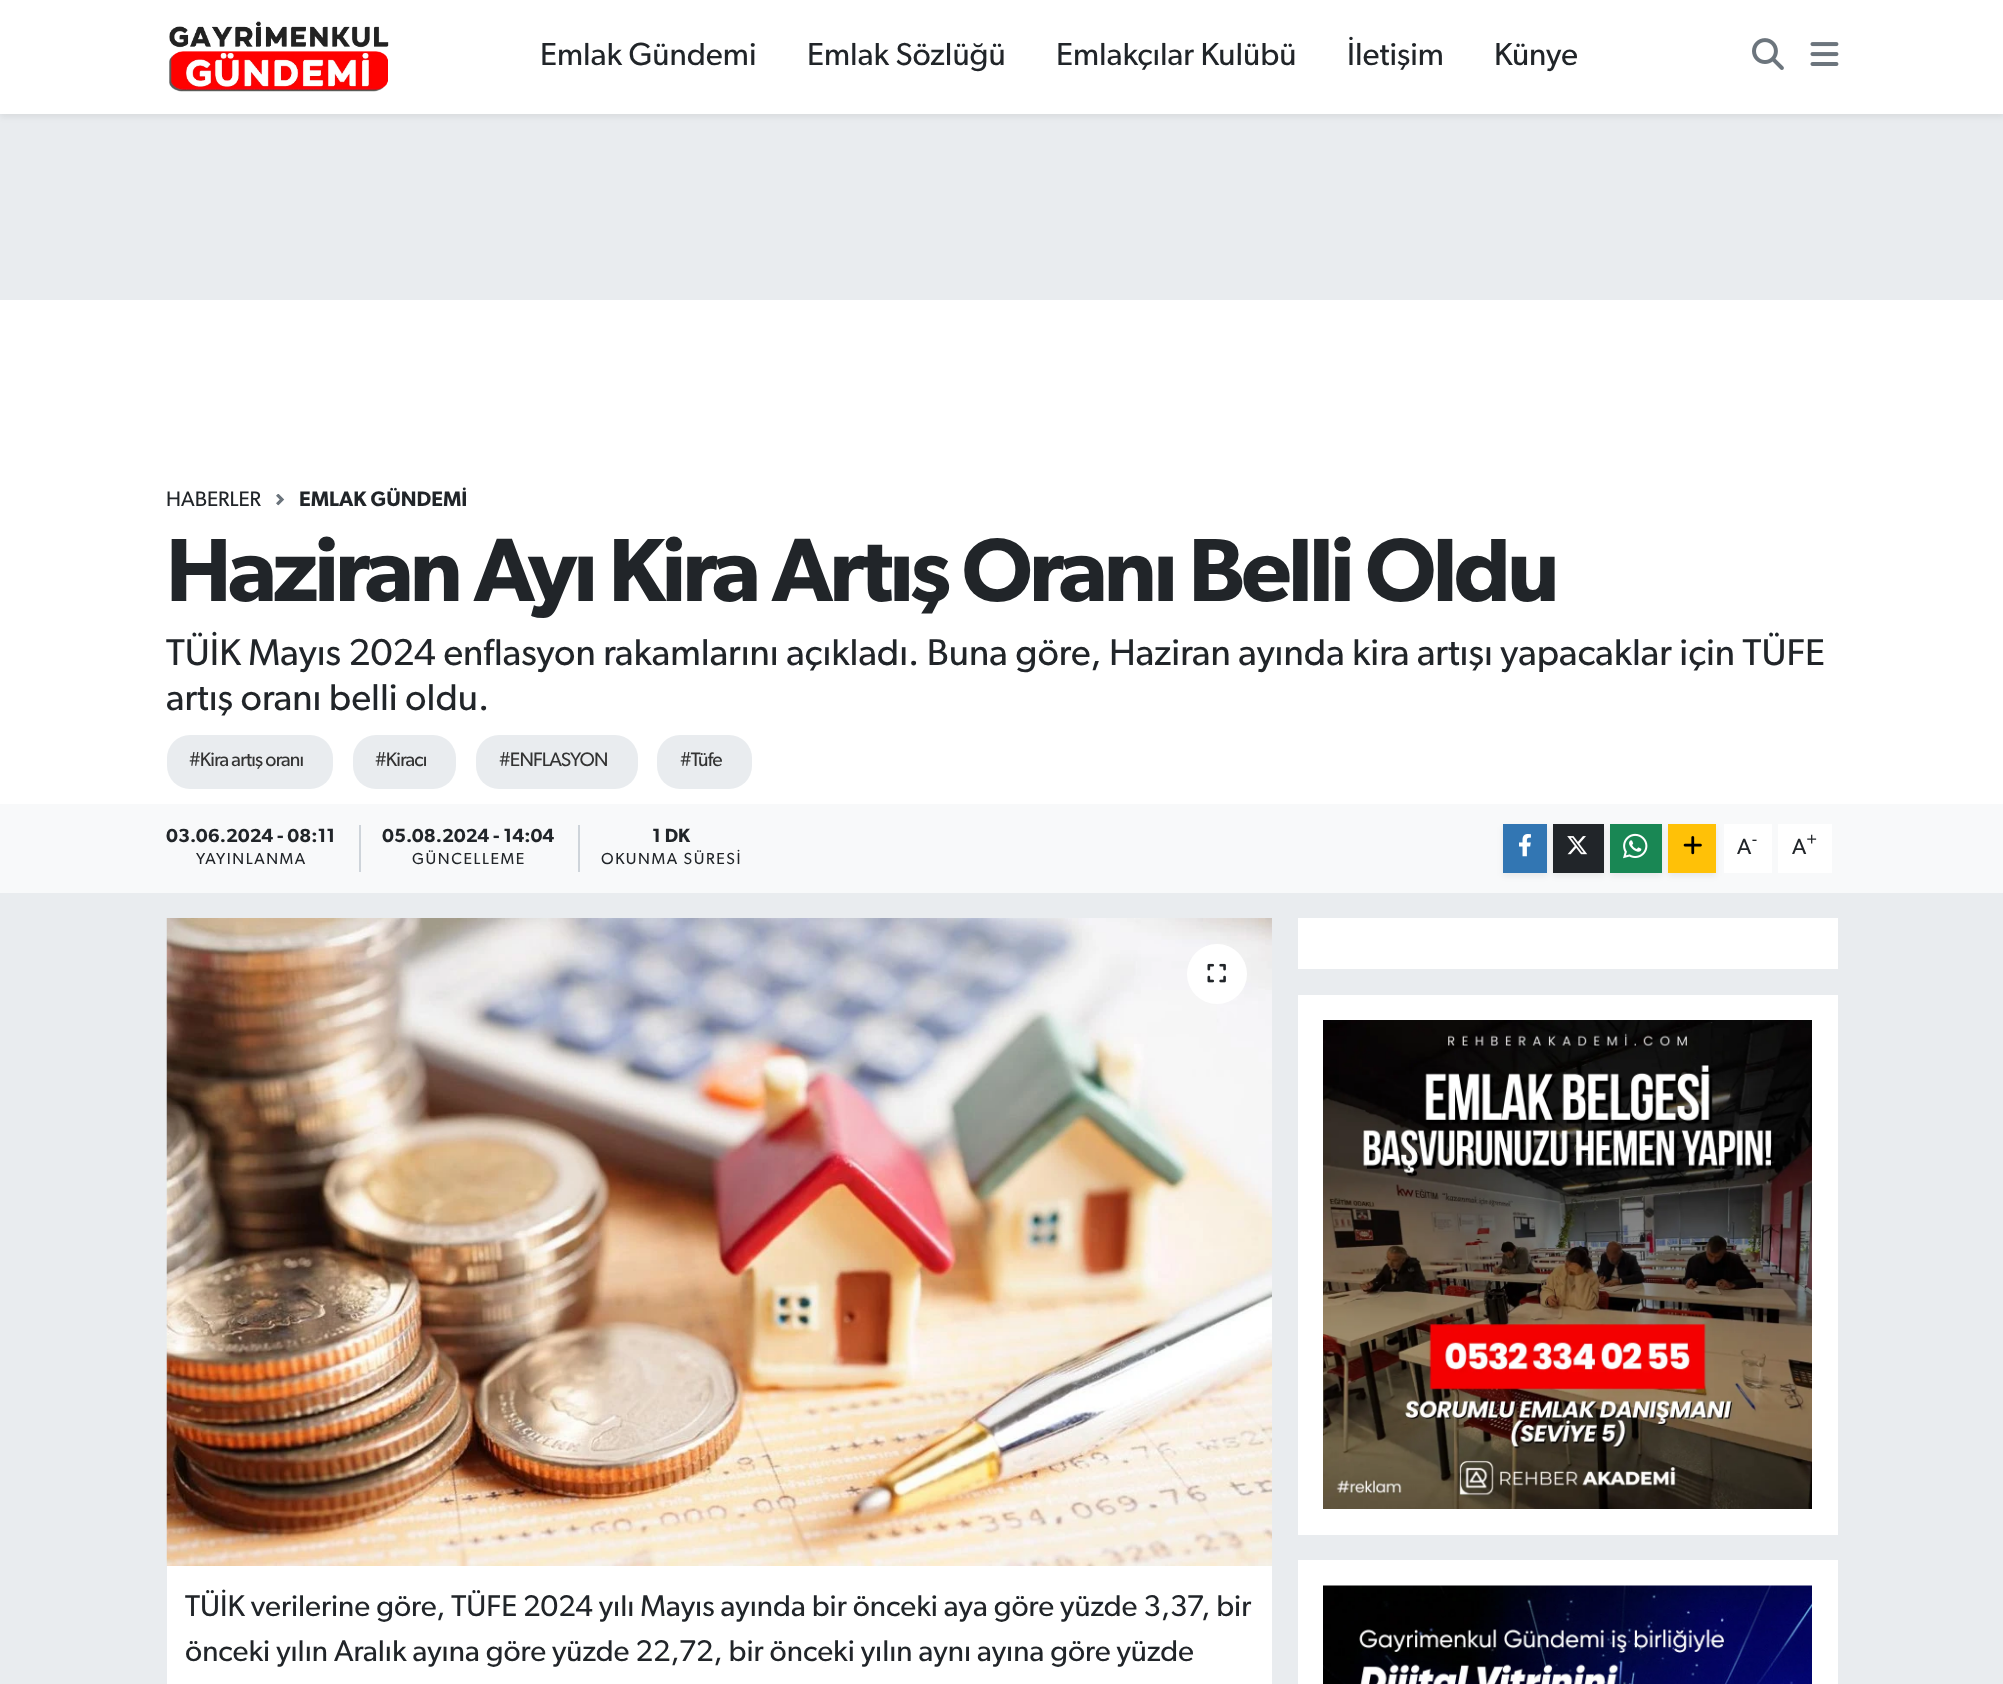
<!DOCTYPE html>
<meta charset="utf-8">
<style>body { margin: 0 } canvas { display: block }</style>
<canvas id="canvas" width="2003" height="1684"></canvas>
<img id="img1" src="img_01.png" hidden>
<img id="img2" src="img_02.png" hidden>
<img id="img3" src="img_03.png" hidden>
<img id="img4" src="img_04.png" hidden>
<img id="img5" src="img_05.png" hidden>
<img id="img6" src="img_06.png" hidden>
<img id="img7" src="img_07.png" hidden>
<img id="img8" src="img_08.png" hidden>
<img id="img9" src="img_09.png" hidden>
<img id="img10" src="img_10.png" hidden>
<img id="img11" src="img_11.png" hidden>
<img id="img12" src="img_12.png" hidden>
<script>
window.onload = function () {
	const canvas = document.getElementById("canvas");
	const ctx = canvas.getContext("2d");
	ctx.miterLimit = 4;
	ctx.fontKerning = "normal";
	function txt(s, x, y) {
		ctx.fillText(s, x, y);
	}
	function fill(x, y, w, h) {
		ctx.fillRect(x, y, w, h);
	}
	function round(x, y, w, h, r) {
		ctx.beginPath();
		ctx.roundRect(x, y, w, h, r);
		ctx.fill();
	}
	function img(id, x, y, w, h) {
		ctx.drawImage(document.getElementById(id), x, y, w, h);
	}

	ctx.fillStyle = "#E9ECEF";
	fill(0, 0, 2003, 1684);
	ctx.fillStyle = "rgba(0, 0, 0, 0.07)";
	ctx.filter = "blur(3px)";
	ctx.beginPath();
	ctx.rect(0, 3, 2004, 114);
	ctx.fill();
	ctx.filter = "none";
	ctx.fillStyle = "#FFFFFF";
	fill(0, 0, 2003, 114);
	img("img1", 169, 21, 220, 71);
	img("img2", 1752, 38, 32, 32);
	img("img3", 1810, 42, 29, 24);
	fill(0, 300, 2003, 504);
	img("img4", 276, 494, 9, 12);
	ctx.fillStyle = "#E9ECEF";
	round(167, 735, 166, 54, 23);
	round(353, 735, 103, 54, 23);
	round(476, 735, 162, 54, 23);
	round(657, 735, 95, 54, 23);
	ctx.fillStyle = "#F8F9FA";
	fill(0, 804, 2003, 89);
	ctx.fillStyle = "#CED4DA";
	fill(359, 825, 2, 47);
	fill(578, 825, 2, 47);
	ctx.fillStyle = "rgba(0, 0, 0, 0.07)";
	ctx.filter = "blur(3px)";
	ctx.beginPath();
	ctx.rect(1503, 827, 44, 49);
	ctx.fill();
	ctx.filter = "none";
	ctx.fillStyle = "#3276B3";
	fill(1503, 824, 44, 49);
	img("img5", 1519, 834, 12, 23);
	ctx.fillStyle = "rgba(0, 0, 0, 0.07)";
	ctx.filter = "blur(3px)";
	ctx.beginPath();
	ctx.rect(1553, 827, 51, 49);
	ctx.fill();
	ctx.filter = "none";
	ctx.fillStyle = "#212529";
	fill(1553, 824, 51, 49);
	img("img6", 1567, 836, 21, 19);
	ctx.fillStyle = "rgba(0, 0, 0, 0.07)";
	ctx.filter = "blur(3px)";
	ctx.beginPath();
	ctx.rect(1610, 827, 52, 49);
	ctx.fill();
	ctx.filter = "none";
	ctx.fillStyle = "#198754";
	fill(1610, 824, 52, 49);
	img("img7", 1623, 833, 25, 26);
	ctx.fillStyle = "#FFFFFF";
	fill(1724, 824, 48, 49);
	ctx.fillStyle = "rgba(0, 0, 0, 0.07)";
	ctx.filter = "blur(3px)";
	ctx.beginPath();
	ctx.rect(1668, 827, 48, 49);
	ctx.fill();
	ctx.filter = "none";
	ctx.fillStyle = "#FFC107";
	fill(1668, 824, 48, 49);
	img("img8", 1683, 836, 19, 19);
	ctx.fillStyle = "#FFFFFF";
	fill(1778, 824, 54, 49);
	img("img9", 166, 918, 1106, 648);
	ctx.beginPath();
	ctx.arc(1217, 974, 30, 0, Math.PI * 2);
	ctx.fill();
	img("img10", 1207, 963, 19, 20);
	fill(167, 1566, 1105, 118);
	fill(1298, 918, 540, 51);
	fill(1298, 995, 540, 540);
	img("img11", 1323, 1020, 489, 489);
	fill(1298, 1560, 540, 124);
	img("img12", 1323, 1585, 489, 99);
	ctx.font = "32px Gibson";
	ctx.fillStyle = "#212529";
	txt("Emlak Gündemi", 540, 65);
	txt("Emlak Sözlüğü", 807, 65);
	txt("Emlakçılar Kulübü", 1056, 65);
	txt("İletişim", 1347, 65);
	txt("Künye", 1494, 65);
	ctx.font = "21px Gibson";
	txt("HABERLER", 166, 506);
	ctx.font = "600 21px Gibson";
	txt("EMLAK GÜNDEMİ", 299, 506);
	ctx.letterSpacing = "-3.45px";
	ctx.font = "600 90px Gibson";
	txt("Haziran Ayı Kira Artış Oranı Belli Oldu", 166, 601);
	ctx.letterSpacing = "0px";
	ctx.font = "37.5px Gibson";
	txt("TÜİK Mayıs 2024 enflasyon rakamlarını açıkladı. Buna göre, Haziran ayında kira artışı yapacaklar için TÜFE", 166, 665);
	txt("artış oranı belli oldu.", 166, 710);
	ctx.letterSpacing = "-0.8px";
	ctx.font = "19.5px Gibson";
	ctx.fillStyle = "#333333";
	txt("#Kira artış oranı", 189, 766);
	txt("#Kiracı", 375, 766);
	txt("#ENFLASYON", 499, 766);
	txt("#Tüfe", 680, 766);
	ctx.letterSpacing = "0px";
	ctx.font = "600 19.1px Gibson";
	ctx.fillStyle = "#212529";
	txt("03.06.2024 - 08:11", 166, 842);
	ctx.letterSpacing = "1.6px";
	ctx.font = "16px Gibson";
	txt("YAYINLANMA", 196, 864);
	ctx.letterSpacing = "0px";
	ctx.font = "600 19.1px Gibson";
	txt("05.08.2024 - 14:04", 382, 842);
	ctx.letterSpacing = "1.6px";
	ctx.font = "16px Gibson";
	txt("GÜNCELLEME", 412, 864);
	ctx.letterSpacing = "0px";
	ctx.font = "600 19.1px Gibson";
	txt("1 DK", 652, 842);
	ctx.letterSpacing = "1.6px";
	ctx.font = "16px Gibson";
	txt("OKUNMA SÜRESİ", 601, 864);
	ctx.letterSpacing = "0px";
	ctx.font = "22px Gibson";
	txt("A", 1737, 854);
	ctx.font = "17px Gibson";
	txt("-", 1752, 845);
	ctx.font = "22px Gibson";
	txt("A", 1792, 854);
	ctx.font = "17px Gibson";
	txt("+", 1806, 845);
	ctx.font = "30px Gibson";
	txt("TÜİK verilerine göre, TÜFE 2024 yılı Mayıs ayında bir önceki aya göre yüzde 3,37, bir", 185, 1616);
	txt("önceki yılın Aralık ayına göre yüzde 22,72, bir önceki yılın aynı ayına göre yüzde", 185, 1661);
};
</script>
